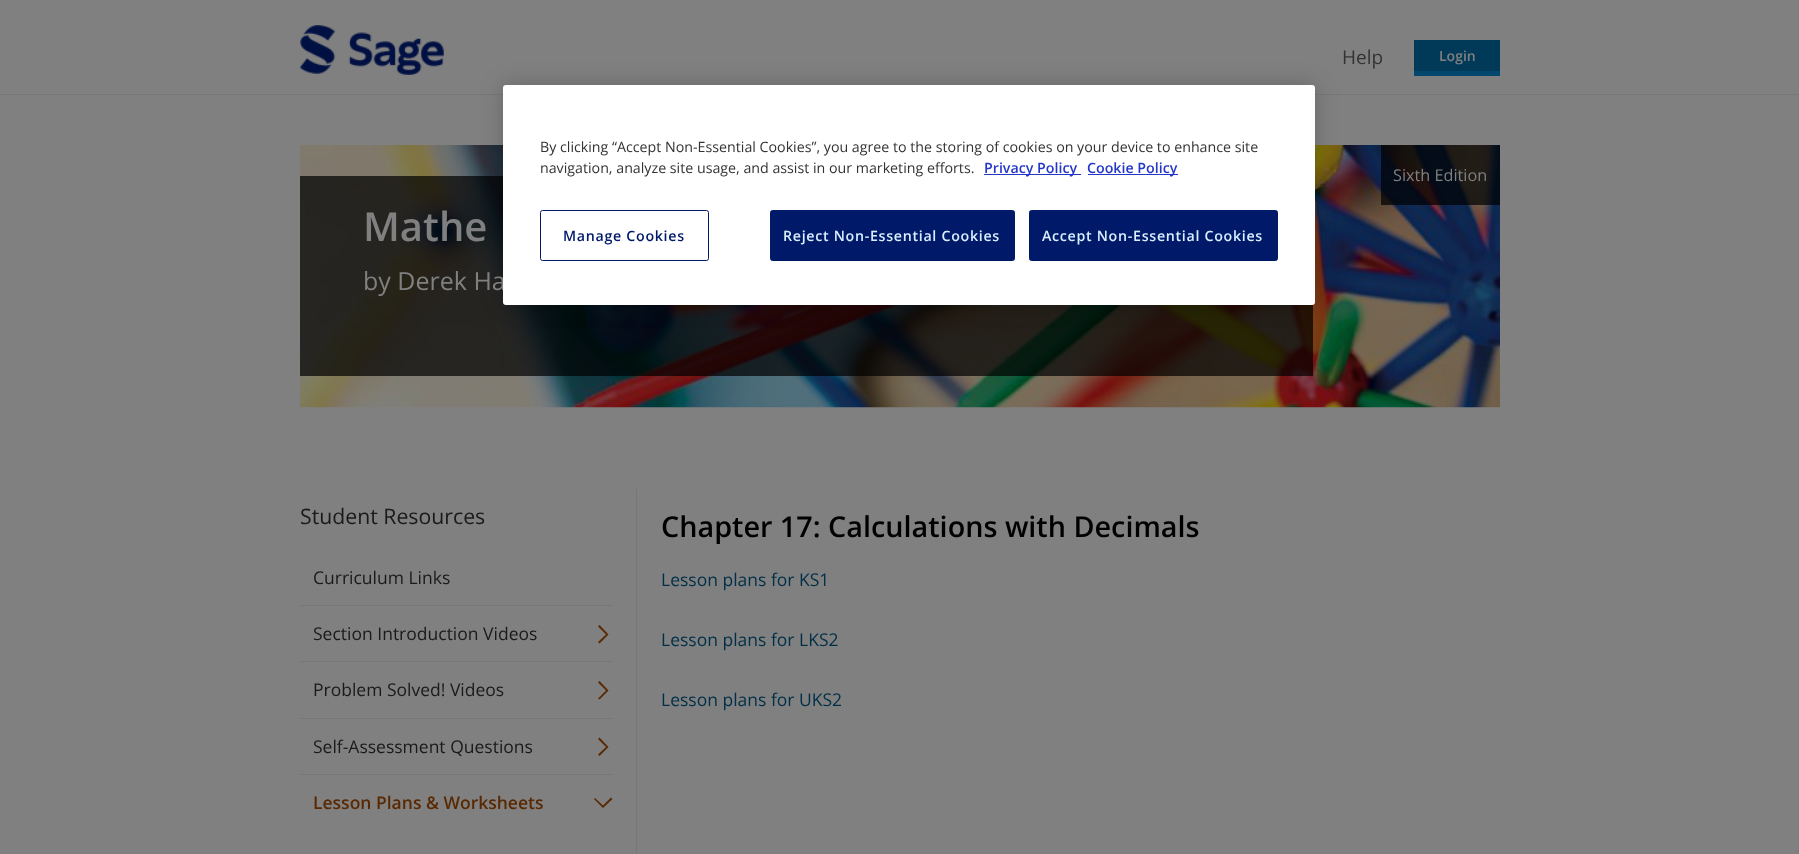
<!DOCTYPE html>
<meta charset="utf-8">
<style>body { margin: 0 } canvas { display: block }</style>
<canvas id="canvas" width="1799" height="854"></canvas>
<img id="img1" src="img_01.png" hidden>
<img id="img2" src="img_02.png" hidden>
<script>
window.onload = function () {
	const canvas = document.getElementById("canvas");
	const ctx = canvas.getContext("2d");
	ctx.miterLimit = 4;
	ctx.fontKerning = "normal";
	function txt(s, x, y) {
		ctx.fillText(s, x, y);
	}
	function fill(x, y, w, h) {
		ctx.fillRect(x, y, w, h);
	}
	function round(x, y, w, h, r) {
		ctx.beginPath();
		ctx.roundRect(x, y, w, h, r);
		ctx.fill();
	}
	function img(id, x, y, w, h) {
		ctx.drawImage(document.getElementById(id), x, y, w, h);
	}

	ctx.fillStyle = "#808080";
	fill(0, 0, 1799, 854);
	ctx.fillStyle = "#777777";
	fill(0, 94, 1799, 1);
	img("img1", 300, 25, 144, 50);
	ctx.fillStyle = "#013A59";
	fill(1414, 40, 86, 31);
	ctx.fillStyle = "#01476E";
	fill(1414, 71, 86, 5);
	img("img2", 300, 145, 1200, 263);
	ctx.fillStyle = "rgba(0, 0, 0, 0.7)";
	fill(300, 176, 1013, 200);
	ctx.fillStyle = "rgba(0, 0, 0, 0.2)";
	ctx.filter = "blur(11px)";
	ctx.beginPath();
	ctx.roundRect(503, 85, 812, 220, 3);
	ctx.fill();
	ctx.filter = "none";
	ctx.fillStyle = "rgba(0, 0, 0, 0.7)";
	fill(1381, 145, 119, 60);
	ctx.fillStyle = "#777777";
	fill(300, 605, 313, 1);
	fill(300, 661, 313, 1);
	ctx.fillStyle = "#582902";
	ctx.beginPath();
	ctx.moveTo(608.5, 634.5);
	ctx.lineTo(599.5, 625);
	ctx.lineTo(598, 626.5);
	ctx.lineTo(606, 634.5);
	ctx.lineTo(598, 642);
	ctx.lineTo(599.5, 643.5);
	ctx.closePath();
	ctx.fill();
	ctx.fillStyle = "#777777";
	fill(300, 718, 313, 1);
	ctx.fillStyle = "#582902";
	ctx.beginPath();
	ctx.moveTo(608.5, 690.5);
	ctx.lineTo(599.5, 681);
	ctx.lineTo(598, 682.5);
	ctx.lineTo(606, 690.5);
	ctx.lineTo(598, 698.5);
	ctx.lineTo(599.5, 699.5);
	ctx.closePath();
	ctx.fill();
	ctx.fillStyle = "#777777";
	fill(300, 774, 313, 1);
	ctx.fillStyle = "#582902";
	ctx.beginPath();
	ctx.moveTo(608.5, 747);
	ctx.lineTo(599.5, 737.5);
	ctx.lineTo(598, 739);
	ctx.lineTo(606, 747);
	ctx.lineTo(598, 754.5);
	ctx.lineTo(599.5, 756);
	ctx.closePath();
	ctx.fill();
	ctx.beginPath();
	ctx.moveTo(612.5, 799);
	ctx.lineTo(611, 797.5);
	ctx.lineTo(603, 805.5);
	ctx.lineTo(595, 798);
	ctx.lineTo(594, 799);
	ctx.lineTo(603, 808);
	ctx.closePath();
	ctx.fill();
	ctx.fillStyle = "#777777";
	fill(636, 489, 1, 365);
	ctx.font = "19px Open Sans";
	ctx.fillStyle = "#333333";
	txt("Help", 1342, 64);
	ctx.font = "600 14px Open Sans";
	ctx.fillStyle = "#808080";
	txt("Login", 1439, 61);
	ctx.font = "16.25px Open Sans";
	txt("Sixth Edition", 1393, 181);
	ctx.font = "600 40px Open Sans";
	txt("Mathe", 363, 241);
	ctx.font = "25px Open Sans";
	txt("by Derek Ha", 363, 290);
	ctx.fillStyle = "#FFFFFF";
	round(503, 85, 812, 220, 3);
	ctx.fillStyle = "#001A69";
	ctx.beginPath();
	ctx.roundRect(1029.5, 210.5, 248, 50, 2);
	ctx.fill();
	ctx.strokeStyle = "#001A69";
	ctx.stroke();
	ctx.letterSpacing = "0.7px";
	ctx.font = "600 14.23px Open Sans";
	ctx.fillStyle = "#D9EEFF";
	txt("Accept Non-Essential Cookies", 1042, 241);
	ctx.fillStyle = "#001A69";
	ctx.beginPath();
	ctx.roundRect(770.5, 210.5, 244, 50, 2);
	ctx.fill();
	ctx.stroke();
	ctx.fillStyle = "#D9EEFF";
	txt("Reject Non-Essential Cookies", 783, 241);
	ctx.beginPath();
	ctx.roundRect(540.5, 210.5, 168, 50, 2);
	ctx.stroke();
	ctx.fillStyle = "#001A69";
	txt("Manage Cookies", 563, 241);
	ctx.fillStyle = "#2537C6";
	fill(1088, 174, 90, 1);
	ctx.letterSpacing = "0px";
	txt("Cookie Policy", 1087, 173);
	fill(984, 174, 97, 1);
	txt("Privacy Policy", 984, 173);
	ctx.font = "14.23px Open Sans";
	ctx.fillStyle = "#333333";
	txt("navigation, analyze site usage, and assist in our marketing efforts.", 540, 173);
	txt("By clicking “Accept Non-Essential Cookies”, you agree to the storing of cookies on your device to enhance site", 540, 152);
	ctx.font = "21.25px Open Sans";
	ctx.fillStyle = "#1A1A1A";
	txt("Student Resources", 300, 524);
	ctx.font = "17.5px Open Sans";
	txt("Curriculum Links", 313, 584);
	txt("Section Introduction Videos", 313, 640);
	txt("Problem Solved! Videos", 313, 696);
	txt("Self-Assessment Questions", 313, 753);
	ctx.font = "600 17.5px Open Sans";
	ctx.fillStyle = "#582902";
	txt("Lesson Plans & Worksheets", 313, 809);
	ctx.font = "600 28.75px Open Sans";
	ctx.fillStyle = "#000000";
	txt("Chapter 17: Calculations with Decimals", 661, 537);
	ctx.font = "17.5px Open Sans";
	ctx.fillStyle = "#012F47";
	txt("Lesson plans for KS1", 661, 586);
	txt("Lesson plans for LKS2", 661, 646);
	txt("Lesson plans for UKS2", 661, 706);
};
</script>
